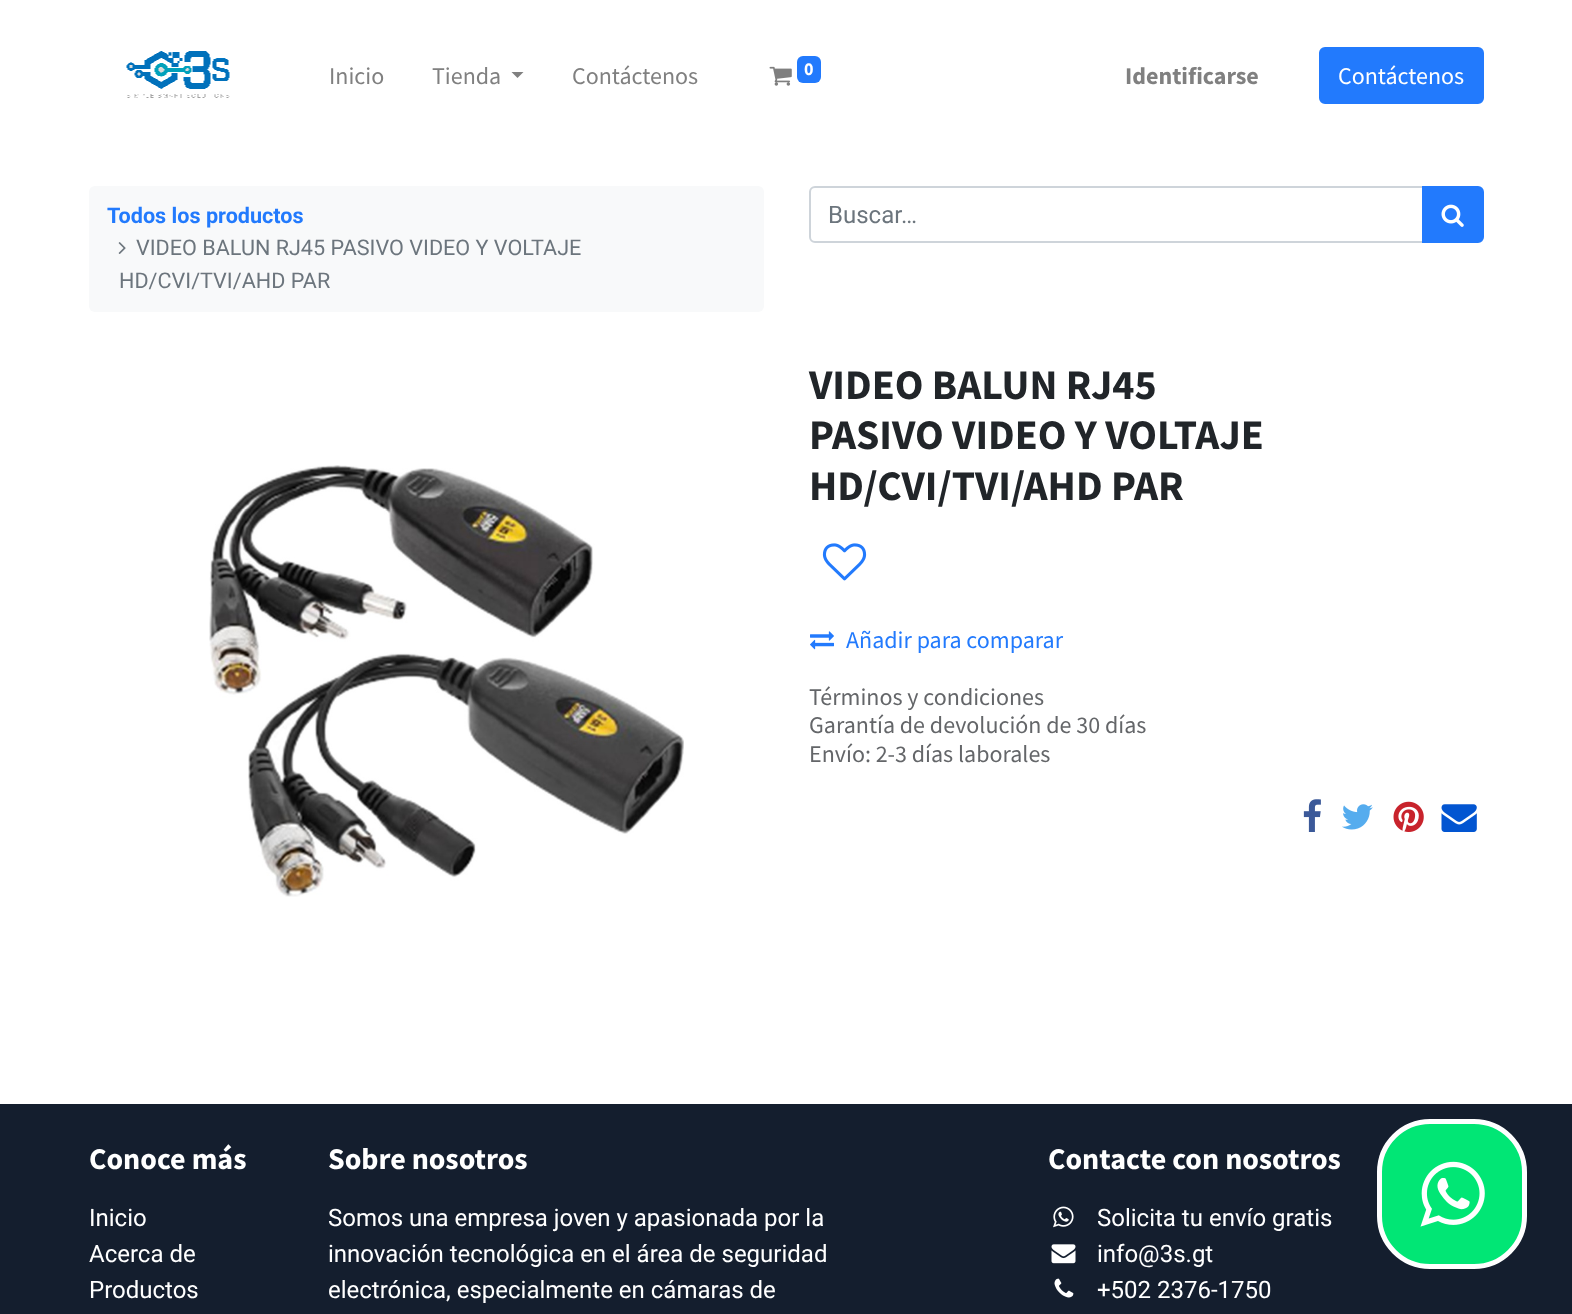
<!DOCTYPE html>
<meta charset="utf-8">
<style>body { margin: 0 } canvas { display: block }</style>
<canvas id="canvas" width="1572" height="1314"></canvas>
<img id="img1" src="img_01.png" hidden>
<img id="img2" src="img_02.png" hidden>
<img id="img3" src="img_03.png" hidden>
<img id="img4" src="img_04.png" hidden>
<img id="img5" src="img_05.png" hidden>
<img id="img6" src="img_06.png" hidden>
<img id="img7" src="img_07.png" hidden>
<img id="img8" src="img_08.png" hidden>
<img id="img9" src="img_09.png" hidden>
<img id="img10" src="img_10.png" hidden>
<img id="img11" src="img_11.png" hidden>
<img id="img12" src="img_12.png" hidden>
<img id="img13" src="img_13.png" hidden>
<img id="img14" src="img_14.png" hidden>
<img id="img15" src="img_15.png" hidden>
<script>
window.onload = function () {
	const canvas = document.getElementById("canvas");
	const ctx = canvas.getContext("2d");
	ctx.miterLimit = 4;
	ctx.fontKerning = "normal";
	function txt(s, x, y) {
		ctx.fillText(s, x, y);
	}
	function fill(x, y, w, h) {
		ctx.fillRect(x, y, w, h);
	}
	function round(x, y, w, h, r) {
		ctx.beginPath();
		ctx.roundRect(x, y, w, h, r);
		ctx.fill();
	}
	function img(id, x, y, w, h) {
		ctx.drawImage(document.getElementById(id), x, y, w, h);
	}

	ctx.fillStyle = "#FFFFFF";
	fill(0, 0, 1572, 1314);
	img("img1", 126, 51, 104, 47);
	ctx.fillStyle = "#808080";
	ctx.beginPath();
	ctx.moveTo(511.5, 72);
	ctx.lineTo(523.5, 72);
	ctx.lineTo(517.5, 78);
	ctx.closePath();
	ctx.fill();
	img("img2", 769, 66, 23, 20);
	ctx.fillStyle = "#227AFD";
	round(797, 56, 24, 27, 6);
	ctx.beginPath();
	ctx.roundRect(1320, 48, 163, 55, 5);
	ctx.fill();
	ctx.strokeStyle = "#227AFD";
	ctx.lineWidth = 2;
	ctx.stroke();
	ctx.fillStyle = "#F8F9FA";
	round(89, 186, 675, 126, 6);
	img("img3", 118, 242, 8, 12);
	ctx.beginPath();
	ctx.roundRect(810, 187, 613, 55, [5, 0, 0, 5]);
	ctx.strokeStyle = "#CED4DA";
	ctx.stroke();
	ctx.fillStyle = "#227AFD";
	ctx.beginPath();
	ctx.roundRect(1423, 187, 60, 55, [0, 5, 5, 0]);
	ctx.fill();
	ctx.strokeStyle = "#227AFD";
	ctx.stroke();
	img("img4", 1441, 204, 23, 23);
	img("img5", 209, 465, 475, 432);
	img("img6", 822, 543, 45, 38);
	img("img7", 810, 631, 24, 19);
	img("img8", 1303, 799, 18, 33);
	img("img9", 1342, 804, 31, 26);
	img("img10", 1393, 801, 31, 31);
	img("img11", 1441, 804, 36, 28);
	ctx.fillStyle = "#141E2E";
	fill(0, 1104, 1572, 210);
	img("img12", 1053, 1206, 21, 22);
	img("img13", 1051, 1244, 25, 20);
	img("img14", 1054, 1278, 20, 20);
	ctx.fillStyle = "#01E675";
	ctx.beginPath();
	ctx.roundRect(1379.5, 1121.5, 145, 145, 50.5);
	ctx.fill();
	ctx.strokeStyle = "#FFFFFF";
	ctx.lineWidth = 5;
	ctx.stroke();
	img("img15", 1420, 1161, 65, 66);
	ctx.font = "24px Source Sans Pro";
	ctx.fillStyle = "#808080";
	txt("Inicio", 329, 84);
	txt("Tienda", 432, 84);
	txt("Contáctenos", 572, 84);
	ctx.font = "bold 18px Source Sans Pro";
	ctx.fillStyle = "#FFFFFF";
	txt("0", 804, 75);
	ctx.font = "bold 24px Source Sans Pro";
	ctx.fillStyle = "#808080";
	txt("Identificarse", 1125, 84);
	ctx.font = "24px Source Sans Pro";
	ctx.fillStyle = "#FFFFFF";
	txt("Contáctenos", 1338, 84);
	ctx.font = "bold 21.6px Roboto";
	ctx.fillStyle = "#227AFD";
	txt("Todos los productos", 107, 223);
	ctx.font = "21.6px Roboto";
	ctx.fillStyle = "#6C757D";
	txt("VIDEO BALUN RJ45 PASIVO VIDEO Y VOLTAJE", 136, 255);
	txt("HD/CVI/TVI/AHD PAR", 119, 288);
	ctx.font = "24px Roboto";
	txt("Buscar…", 828, 223);
	ctx.font = "bold 42px Source Sans Pro";
	ctx.fillStyle = "#212529";
	txt("VIDEO BALUN RJ45", 809, 399);
	txt("PASIVO VIDEO Y VOLTAJE", 809, 449);
	txt("HD/CVI/TVI/AHD PAR", 809, 500);
	ctx.font = "24px Source Sans Pro";
	ctx.fillStyle = "#227AFD";
	txt("Añadir para comparar", 846, 648);
	ctx.fillStyle = "#646669";
	txt("Términos y condiciones", 809, 705);
	txt("Garantía de devolución de 30 días", 809, 733);
	txt("Envío: 2-3 días laborales", 809, 762);
	ctx.font = "bold 30px Source Sans Pro";
	ctx.fillStyle = "#FFFFFF";
	txt("Conoce más", 89, 1169);
	ctx.font = "24px Roboto";
	txt("Inicio", 89, 1226);
	txt("Acerca de", 89, 1262);
	txt("Productos", 89, 1298);
	ctx.font = "bold 30px Source Sans Pro";
	txt("Sobre nosotros", 328, 1169);
	ctx.font = "24px Roboto";
	txt("Somos una empresa joven y apasionada por la", 328, 1226);
	txt("innovación tecnológica en el área de seguridad", 328, 1262);
	txt("electrónica, especialmente en cámaras de", 328, 1298);
	ctx.font = "bold 30px Source Sans Pro";
	txt("Contacte con nosotros", 1048, 1169);
	ctx.font = "24px Roboto";
	txt("Solicita tu envío gratis", 1097, 1226);
	txt("info@3s.gt", 1097, 1262);
	txt("+502 2376-1750", 1097, 1298);
};
</script>
